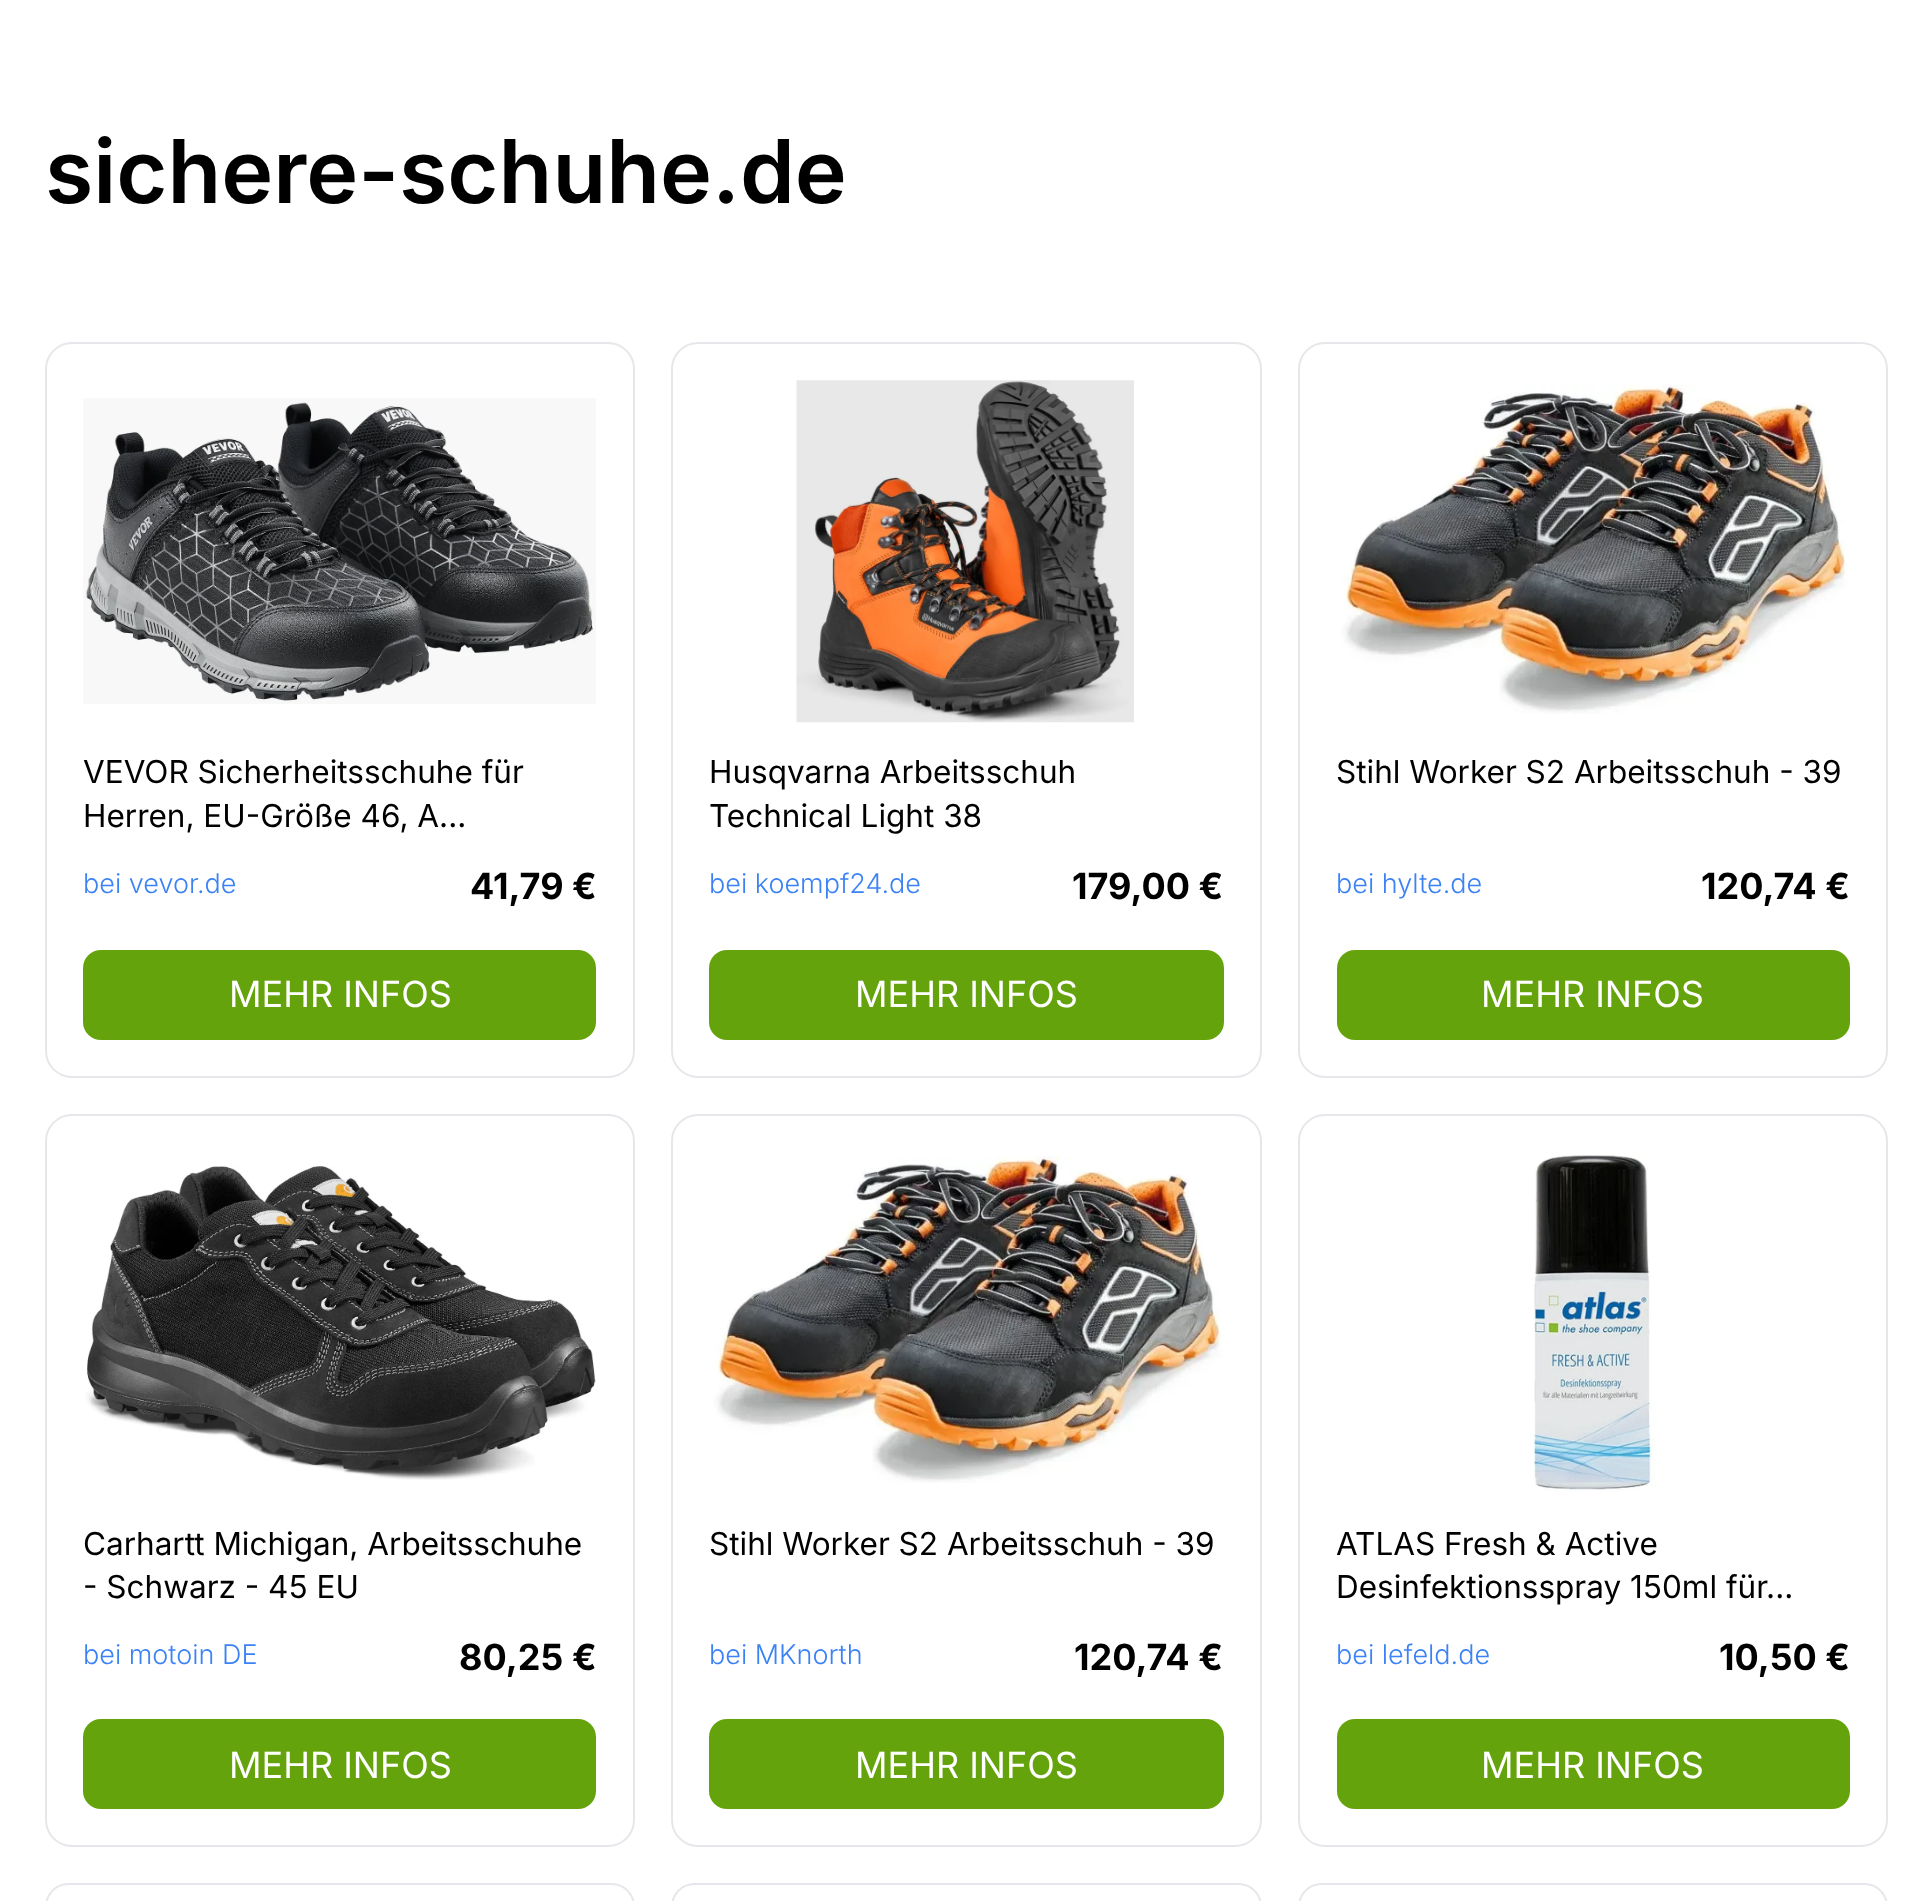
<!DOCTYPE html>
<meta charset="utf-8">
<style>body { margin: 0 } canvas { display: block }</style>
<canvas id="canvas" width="1932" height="1901"></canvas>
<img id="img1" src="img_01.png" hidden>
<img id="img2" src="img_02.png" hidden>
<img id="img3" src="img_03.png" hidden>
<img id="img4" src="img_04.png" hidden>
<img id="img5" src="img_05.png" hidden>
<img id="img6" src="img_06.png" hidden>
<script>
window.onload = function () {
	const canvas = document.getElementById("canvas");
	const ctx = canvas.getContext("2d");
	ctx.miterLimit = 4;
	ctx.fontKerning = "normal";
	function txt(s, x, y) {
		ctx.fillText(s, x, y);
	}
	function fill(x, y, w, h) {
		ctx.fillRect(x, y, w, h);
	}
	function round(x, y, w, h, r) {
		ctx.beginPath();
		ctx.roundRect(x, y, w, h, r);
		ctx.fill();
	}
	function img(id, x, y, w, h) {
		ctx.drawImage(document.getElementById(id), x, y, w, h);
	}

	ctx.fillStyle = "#FFFFFF";
	fill(0, 0, 1932, 1901);
	ctx.beginPath();
	ctx.roundRect(46, 343, 588, 734, 26);
	ctx.strokeStyle = "#E5E7EB";
	ctx.lineWidth = 2;
	ctx.stroke();
	img("img1", 83, 398, 513, 306);
	ctx.fillStyle = "#65A30D";
	round(83, 950, 513, 90, 18);
	ctx.beginPath();
	ctx.roundRect(672, 343, 589, 734, 26);
	ctx.stroke();
	img("img2", 796, 380, 338, 343);
	round(709, 950, 515, 90, 18);
	ctx.beginPath();
	ctx.roundRect(1299, 343, 588, 734, 26);
	ctx.stroke();
	img("img3", 1341, 384, 507, 330);
	round(1337, 950, 513, 90, 18);
	ctx.beginPath();
	ctx.roundRect(46, 1115, 588, 731, 26);
	ctx.stroke();
	img("img4", 85, 1166, 511, 314);
	round(83, 1719, 513, 90, 18);
	ctx.beginPath();
	ctx.roundRect(672, 1115, 589, 731, 26);
	ctx.stroke();
	img("img5", 713, 1156, 510, 327);
	round(709, 1719, 515, 90, 18);
	ctx.beginPath();
	ctx.roundRect(1299, 1115, 588, 731, 26);
	ctx.stroke();
	img("img6", 1533, 1155, 123, 336);
	round(1337, 1719, 513, 90, 18);
	ctx.beginPath();
	ctx.roundRect(46, 1884, 588, 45, 26);
	ctx.stroke();
	ctx.beginPath();
	ctx.roundRect(672, 1884, 589, 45, 26);
	ctx.stroke();
	ctx.beginPath();
	ctx.roundRect(1299, 1884, 588, 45, 26);
	ctx.stroke();
	ctx.font = "600 87.9px Inter";
	ctx.fillStyle = "#000000";
	txt("sichere-schuhe.de", 45, 203);
	ctx.font = "31.5px Inter";
	txt("VEVOR Sicherheitsschuhe für", 83, 783);
	txt("Herren, EU-Größe 46, A...", 83, 827);
	ctx.font = "300 27px Inter";
	ctx.fillStyle = "#3B82F6";
	txt("bei vevor.de", 83, 893);
	ctx.font = "bold 36px Inter";
	ctx.fillStyle = "#000000";
	txt("41,79 €", 470, 899);
	ctx.font = "36px Inter";
	ctx.fillStyle = "#FFFFFF";
	txt("MEHR INFOS", 229, 1007);
	ctx.font = "31.5px Inter";
	ctx.fillStyle = "#000000";
	txt("Husqvarna Arbeitsschuh", 709, 783);
	txt("Technical Light 38", 709, 827);
	ctx.font = "300 27px Inter";
	ctx.fillStyle = "#3B82F6";
	txt("bei koempf24.de", 709, 893);
	ctx.font = "bold 36px Inter";
	ctx.fillStyle = "#000000";
	txt("179,00 €", 1072, 899);
	ctx.font = "36px Inter";
	ctx.fillStyle = "#FFFFFF";
	txt("MEHR INFOS", 855, 1007);
	ctx.font = "31.5px Inter";
	ctx.fillStyle = "#000000";
	txt("Stihl Worker S2 Arbeitsschuh - 39", 1336, 783);
	ctx.font = "300 27px Inter";
	ctx.fillStyle = "#3B82F6";
	txt("bei hylte.de", 1336, 893);
	ctx.font = "bold 36px Inter";
	ctx.fillStyle = "#000000";
	txt("120,74 €", 1701, 899);
	ctx.font = "36px Inter";
	ctx.fillStyle = "#FFFFFF";
	txt("MEHR INFOS", 1481, 1007);
	ctx.font = "31.5px Inter";
	ctx.fillStyle = "#000000";
	txt("Carhartt Michigan, Arbeitsschuhe", 83, 1555);
	txt("- Schwarz - 45 EU", 83, 1598);
	ctx.font = "300 27px Inter";
	ctx.fillStyle = "#3B82F6";
	txt("bei motoin DE", 83, 1664);
	ctx.font = "bold 36px Inter";
	ctx.fillStyle = "#000000";
	txt("80,25 €", 459, 1670);
	ctx.font = "36px Inter";
	ctx.fillStyle = "#FFFFFF";
	txt("MEHR INFOS", 229, 1778);
	ctx.font = "31.5px Inter";
	ctx.fillStyle = "#000000";
	txt("Stihl Worker S2 Arbeitsschuh - 39", 709, 1555);
	ctx.font = "300 27px Inter";
	ctx.fillStyle = "#3B82F6";
	txt("bei MKnorth", 709, 1664);
	ctx.font = "bold 36px Inter";
	ctx.fillStyle = "#000000";
	txt("120,74 €", 1074, 1670);
	ctx.font = "36px Inter";
	ctx.fillStyle = "#FFFFFF";
	txt("MEHR INFOS", 855, 1778);
	ctx.font = "31.5px Inter";
	ctx.fillStyle = "#000000";
	txt("ATLAS Fresh & Active", 1336, 1555);
	txt("Desinfektionsspray 150ml für...", 1336, 1598);
	ctx.font = "300 27px Inter";
	ctx.fillStyle = "#3B82F6";
	txt("bei lefeld.de", 1336, 1664);
	ctx.font = "bold 36px Inter";
	ctx.fillStyle = "#000000";
	txt("10,50 €", 1719, 1670);
	ctx.font = "36px Inter";
	ctx.fillStyle = "#FFFFFF";
	txt("MEHR INFOS", 1481, 1778);
};
</script>
